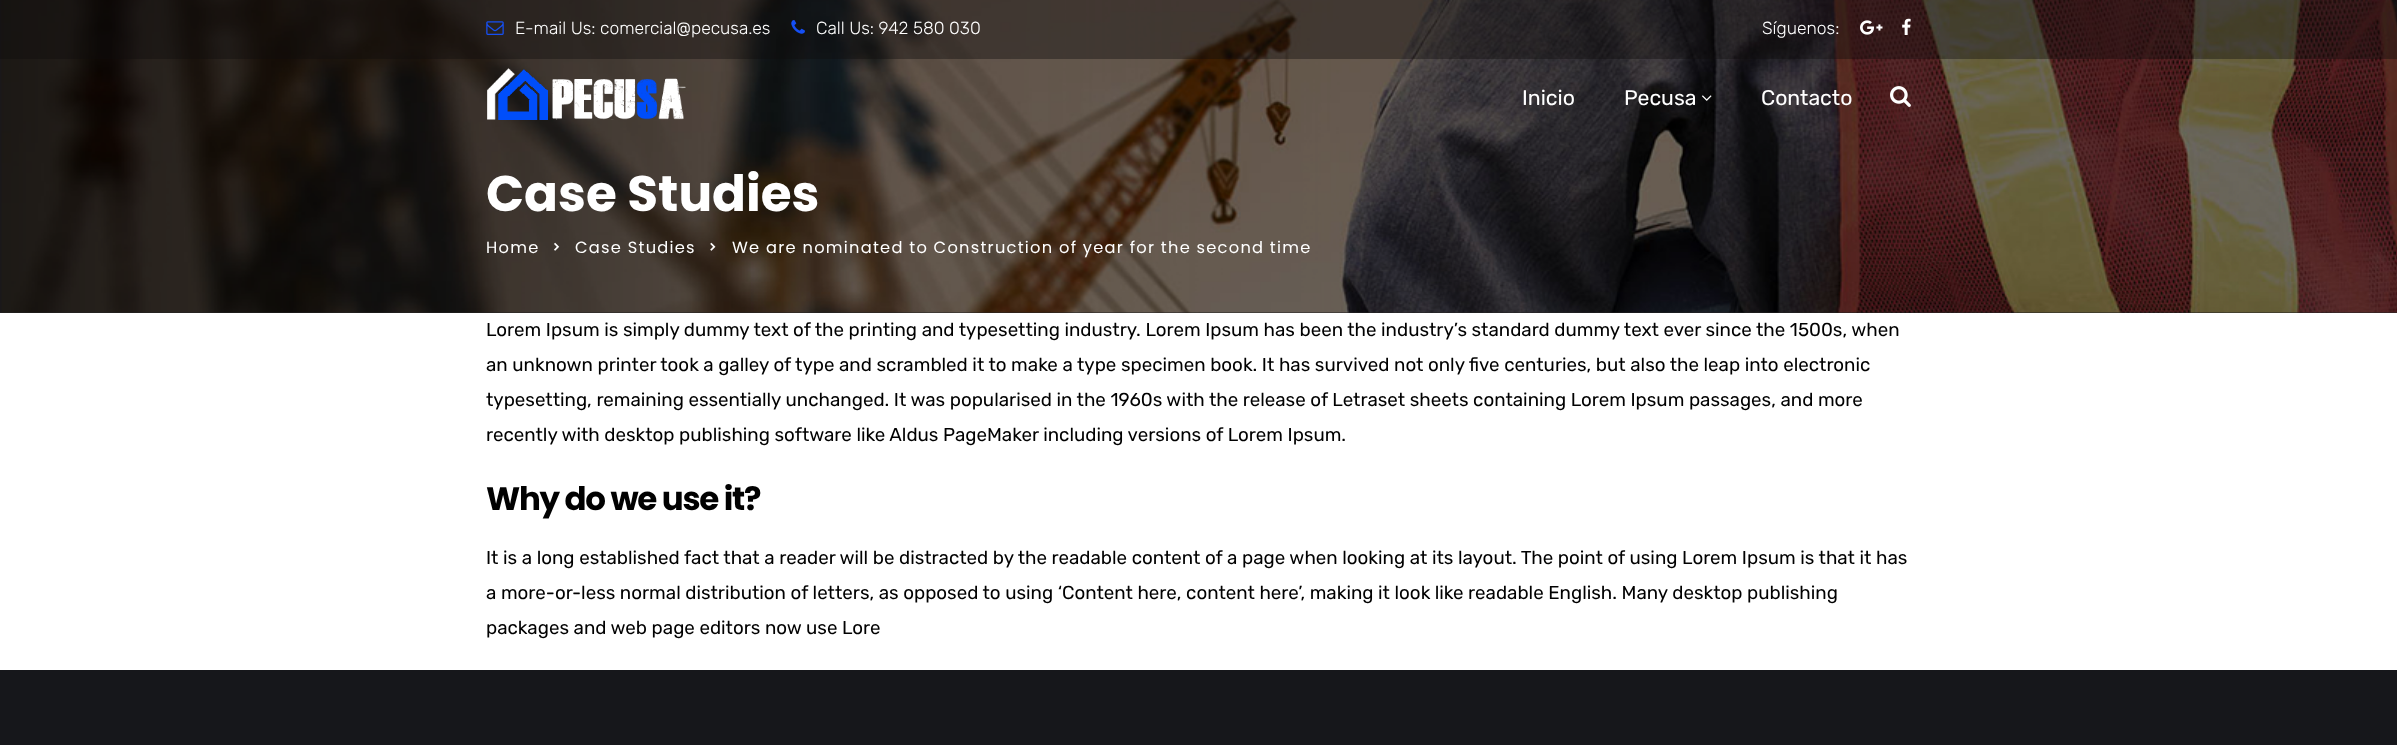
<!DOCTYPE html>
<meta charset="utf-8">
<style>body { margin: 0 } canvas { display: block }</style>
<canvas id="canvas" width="2397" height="745"></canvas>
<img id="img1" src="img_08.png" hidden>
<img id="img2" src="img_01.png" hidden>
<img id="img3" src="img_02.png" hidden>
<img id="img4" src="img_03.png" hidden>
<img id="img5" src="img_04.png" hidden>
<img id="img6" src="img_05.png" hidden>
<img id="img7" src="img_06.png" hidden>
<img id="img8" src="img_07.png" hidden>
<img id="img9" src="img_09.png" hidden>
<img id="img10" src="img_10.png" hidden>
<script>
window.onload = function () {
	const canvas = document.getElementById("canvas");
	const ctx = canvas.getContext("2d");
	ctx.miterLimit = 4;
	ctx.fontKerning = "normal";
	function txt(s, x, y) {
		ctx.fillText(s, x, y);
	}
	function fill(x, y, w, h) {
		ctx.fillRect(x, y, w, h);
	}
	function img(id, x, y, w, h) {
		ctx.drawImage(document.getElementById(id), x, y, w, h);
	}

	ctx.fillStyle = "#FFFFFF";
	fill(0, 0, 2397, 745);
	ctx.fillStyle = "#252525";
	fill(0, 312, 2397, 1);
	img("img1", 0, 0, 2397, 313);
	ctx.fillStyle = "rgba(14, 13, 13, 0.4)";
	fill(0, 0, 2397, 59);
	img("img2", 486, 21, 18, 14);
	img("img3", 791, 20, 14, 14);
	img("img4", 1860, 20, 23, 15);
	img("img5", 1902, 18, 9, 17);
	img("img6", 487, 68, 199, 52);
	img("img7", 1702, 95, 10, 6);
	img("img8", 1890, 86, 21, 21);
	img("img9", 554, 242, 6, 9);
	img("img10", 710, 242, 6, 9);
	ctx.fillStyle = "#16171B";
	fill(0, 670, 2397, 75);
	ctx.font = "300 17.5px Rubik";
	ctx.fillStyle = "#FFFFFF";
	txt("E-mail Us: comercial@pecusa.es", 515, 34);
	txt("Call Us: 942 580 030", 816, 34);
	txt("Síguenos:", 1762, 34);
	ctx.font = "21.25px Rubik";
	txt("Inicio", 1522, 105);
	txt("Pecusa", 1624, 105);
	txt("Contacto", 1761, 105);
	ctx.font = "bold 50px Poppins";
	txt("Case Studies", 486, 211);
	ctx.letterSpacing = "1.25px";
	ctx.font = "16.25px Poppins";
	txt("Home", 486, 253);
	txt("Case Studies", 575, 253);
	txt("We are nominated to Construction of year for the second time", 732, 253);
	ctx.letterSpacing = "0px";
	ctx.font = "18.75px Rubik";
	ctx.fillStyle = "#010101";
	txt("Lorem Ipsum is simply dummy text of the printing and typesetting industry. Lorem Ipsum has been the industry’s standard dummy text ever since the 1500s, when", 486, 336);
	txt("an unknown printer took a galley of type and scrambled it to make a type specimen book. It has survived not only five centuries, but also the leap into electronic", 486, 371);
	txt("typesetting, remaining essentially unchanged. It was popularised in the 1960s with the release of Letraset sheets containing Lorem Ipsum passages, and more", 486, 406);
	txt("recently with desktop publishing software like Aldus PageMaker including versions of Lorem Ipsum.", 486, 441);
	ctx.letterSpacing = "-1.25px";
	ctx.font = "bold 32.5px Poppins";
	txt("Why do we use it?", 486, 510);
	ctx.letterSpacing = "0px";
	ctx.font = "18.75px Rubik";
	txt("It is a long established fact that a reader will be distracted by the readable content of a page when looking at its layout. The point of using Lorem Ipsum is that it has", 486, 564);
	txt("a more-or-less normal distribution of letters, as opposed to using ‘Content here, content here’, making it look like readable English. Many desktop publishing", 486, 599);
	txt("packages and web page editors now use Lore", 486, 634);
};
</script>
